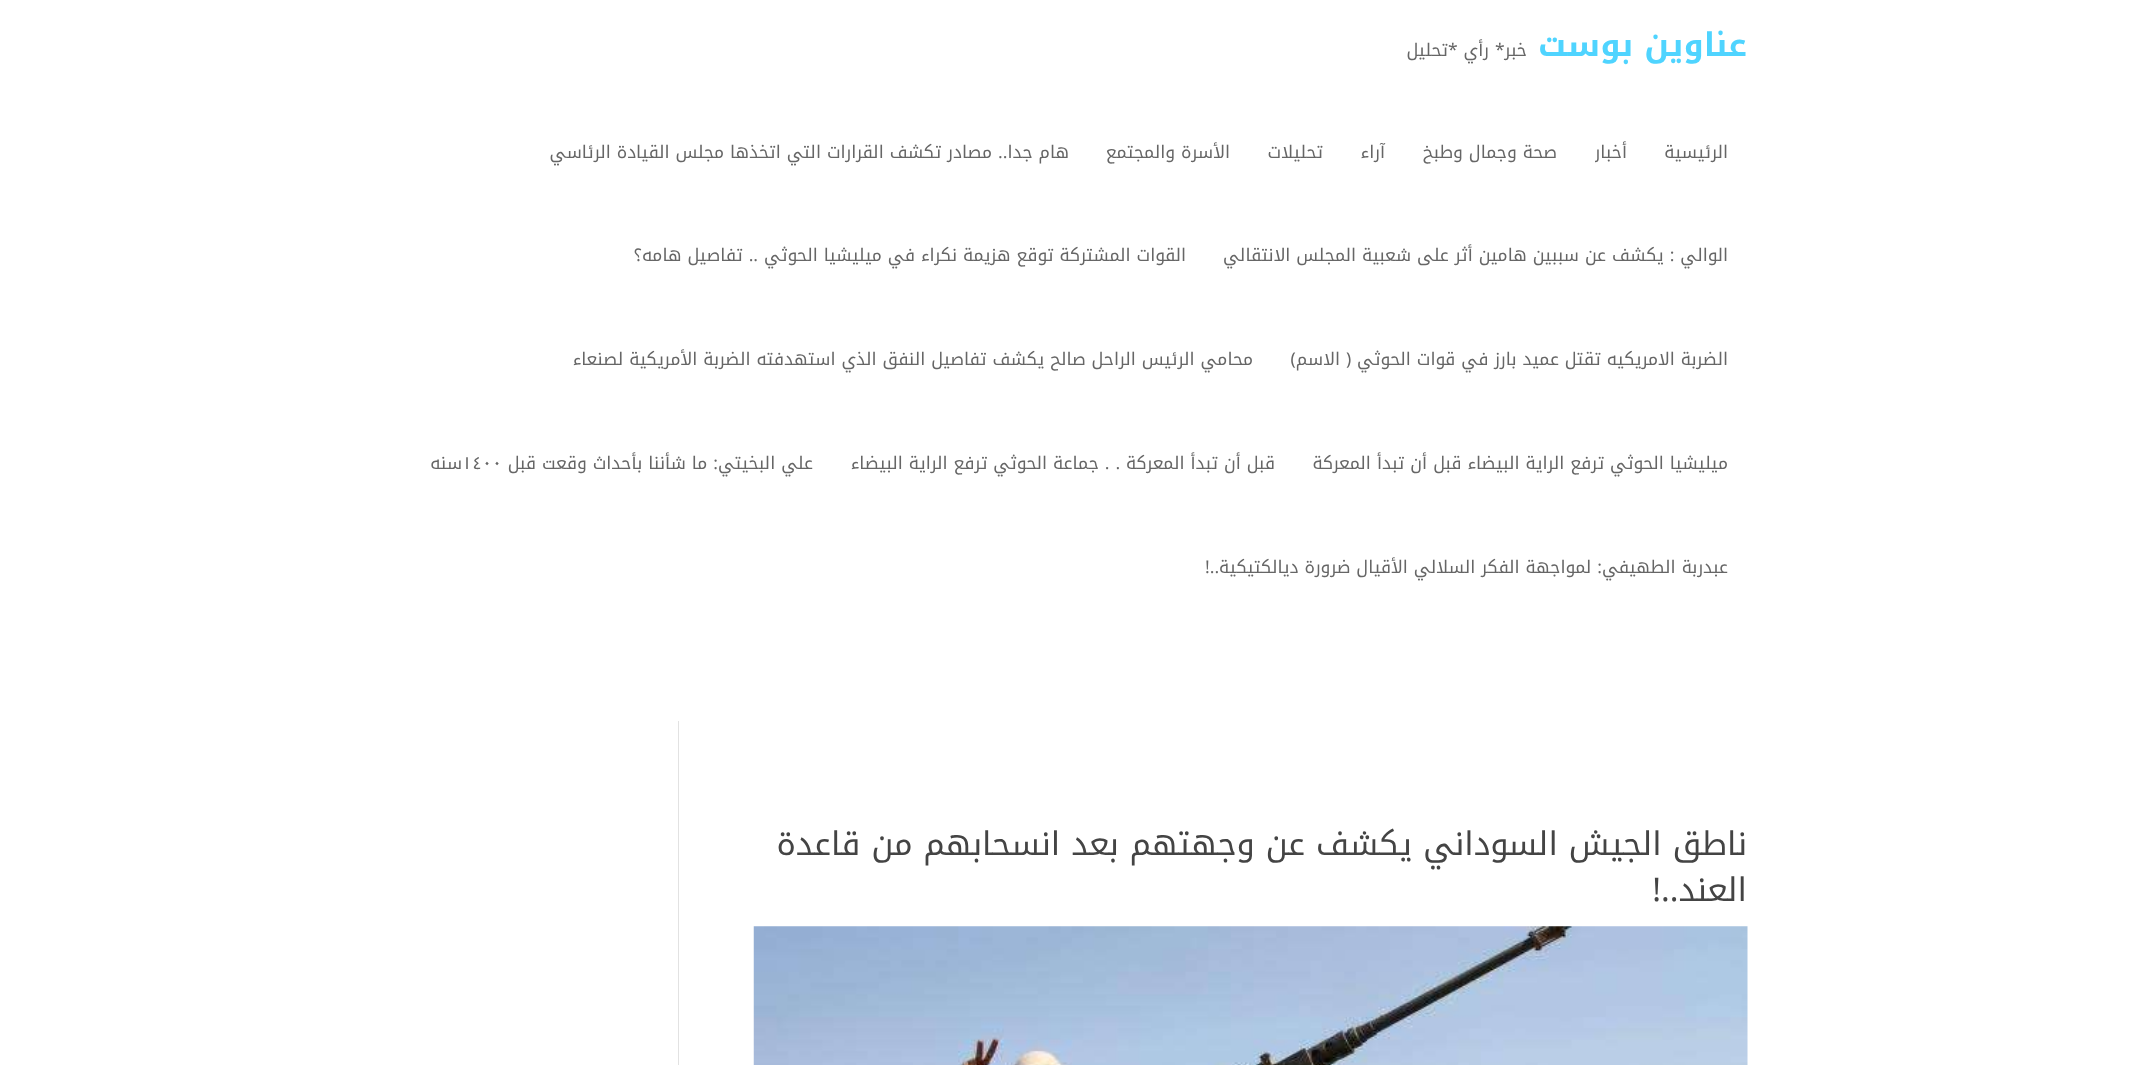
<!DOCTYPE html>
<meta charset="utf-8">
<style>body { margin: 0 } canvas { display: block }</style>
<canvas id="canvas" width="2143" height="1065"></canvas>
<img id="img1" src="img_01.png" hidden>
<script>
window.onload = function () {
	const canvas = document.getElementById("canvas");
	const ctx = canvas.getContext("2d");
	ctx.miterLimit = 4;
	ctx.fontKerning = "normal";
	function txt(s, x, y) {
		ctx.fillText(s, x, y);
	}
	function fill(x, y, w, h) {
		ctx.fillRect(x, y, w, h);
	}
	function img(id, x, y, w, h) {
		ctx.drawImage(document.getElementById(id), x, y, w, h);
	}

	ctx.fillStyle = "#FFFFFF";
	fill(0, 0, 2143, 1065);
	img("img1", 753, 926, 995, 139);
	ctx.fillStyle = "#E2E2E2";
	fill(678, 721, 1, 344);
	ctx.direction = "rtl";
	ctx.font = "bold 32.5px Noto Kufi Arabic";
	ctx.fillStyle = "#4FD4FF";
	txt("عناوين بوست", 1747, 56);
	ctx.font = "17.5px Noto Kufi Arabic";
	ctx.fillStyle = "#666666";
	txt("خبر* رأي *تحليل", 1527, 56);
	txt("الرئيسية", 1728, 158);
	ctx.save();
	ctx.beginPath();
	ctx.rect(1595, 100, 33, 104);
	ctx.clip();
	txt("أخبار", 1627, 158);
	ctx.restore();
	txt("صحة وجمال وطبخ", 1557, 158);
	txt("آراء", 1385, 158);
	txt("تحليلات", 1323, 158);
	txt("الأسرة والمجتمع", 1230, 158);
	txt("هام جدا.. مصادر تكشف القرارات التي اتخذها مجلس القيادة الرئاسي", 1069, 158);
	txt("الوالي : يكشف عن سببين هامين أثر على شعبية المجلس الانتقالي", 1728, 261);
	txt("القوات المشتركة توقع هزيمة نكراء في ميليشيا الحوثي .. تفاصيل هامه؟", 1186, 261);
	txt("الضربة الامريكيه تقتل عميد بارز في قوات الحوثي ( الاسم)", 1728, 365);
	txt("محامي الرئيس الراحل صالح يكشف تفاصيل النفق الذي استهدفته الضربة الأمريكية لصنعاء", 1253, 365);
	txt("ميليشيا الحوثي ترفع الراية البيضاء قبل أن تبدأ المعركة", 1728, 469);
	txt("قبل أن تبدأ المعركة . . جماعة الحوثي ترفع الراية البيضاء", 1275, 469);
	txt("علي البخيتي: ما شأننا بأحداث وقعت قبل", 813, 469);
	ctx.direction = "ltr";
	txt("١٤٠٠", 462, 469);
	ctx.direction = "rtl";
	txt("سنه", 462, 469);
	txt("عبدربة الطهيفي: لمواجهة الفكر السلالي الأقيال ضرورة ديالكتيكية..!", 1728, 573);
	ctx.font = "32.5px Noto Kufi Arabic";
	ctx.fillStyle = "#444444";
	txt("ناطق الجيش السوداني يكشف عن وجهتهم بعد انسحابهم من قاعدة", 1747, 855);
	txt("العند..!", 1747, 901);
};
</script>
